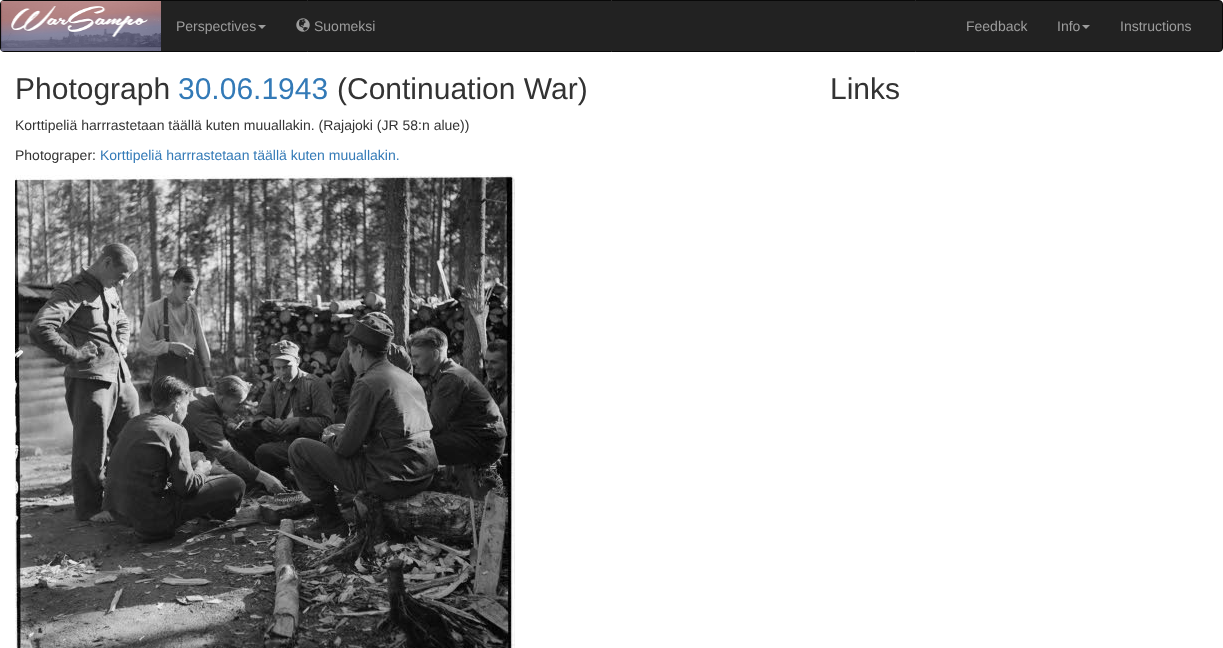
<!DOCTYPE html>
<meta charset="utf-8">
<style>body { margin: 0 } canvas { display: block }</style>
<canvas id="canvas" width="1223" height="648"></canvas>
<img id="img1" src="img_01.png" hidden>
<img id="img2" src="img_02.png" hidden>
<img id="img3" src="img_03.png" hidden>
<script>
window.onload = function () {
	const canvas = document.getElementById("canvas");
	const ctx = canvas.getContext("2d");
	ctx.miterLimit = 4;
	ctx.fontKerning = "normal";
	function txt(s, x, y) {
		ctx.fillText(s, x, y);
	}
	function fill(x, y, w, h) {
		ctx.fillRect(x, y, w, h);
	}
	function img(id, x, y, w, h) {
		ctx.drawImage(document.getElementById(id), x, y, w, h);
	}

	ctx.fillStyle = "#FFFFFF";
	fill(0, 0, 1223, 648);
	ctx.fillStyle = "#222222";
	ctx.beginPath();
	ctx.roundRect(0.5, 0.5, 1222, 51, 3.5);
	ctx.fill();
	ctx.strokeStyle = "#090909";
	ctx.stroke();
	img("img1", 1, 1, 160, 50);
	ctx.fillStyle = "#9D9D9D";
	ctx.beginPath();
	ctx.moveTo(258, 25);
	ctx.lineTo(266, 25);
	ctx.lineTo(262, 29);
	ctx.closePath();
	ctx.fill();
	img("img2", 296, 18, 14, 14);
	ctx.beginPath();
	ctx.moveTo(1082, 25);
	ctx.lineTo(1090, 25);
	ctx.lineTo(1086, 29);
	ctx.closePath();
	ctx.fill();
	img("img3", 15, 175, 500, 473);
	ctx.font = "14px Liberation Sans";
	txt("Perspectives", 176, 31);
	txt("Suomeksi", 314, 31);
	txt("Feedback", 966, 31);
	txt("Info", 1057, 31);
	txt("Instructions", 1120, 31);
	ctx.font = "30px Liberation Sans";
	ctx.fillStyle = "#333333";
	txt("Photograph", 15, 99);
	ctx.fillStyle = "#337AB7";
	txt("30.06.1943", 178, 99);
	ctx.fillStyle = "#333333";
	txt("(Continuation War)", 337, 99);
	ctx.font = "14px Liberation Sans";
	txt("Korttipeliä harrrastetaan täällä kuten muuallakin. (Rajajoki (JR 58:n alue))", 15, 130);
	txt("Photograper:", 15, 160);
	ctx.fillStyle = "#337AB7";
	txt("Korttipeliä harrrastetaan täällä kuten muuallakin.", 100, 160);
	ctx.font = "30px Liberation Sans";
	ctx.fillStyle = "#333333";
	txt("Links", 830, 99);
};
</script>
